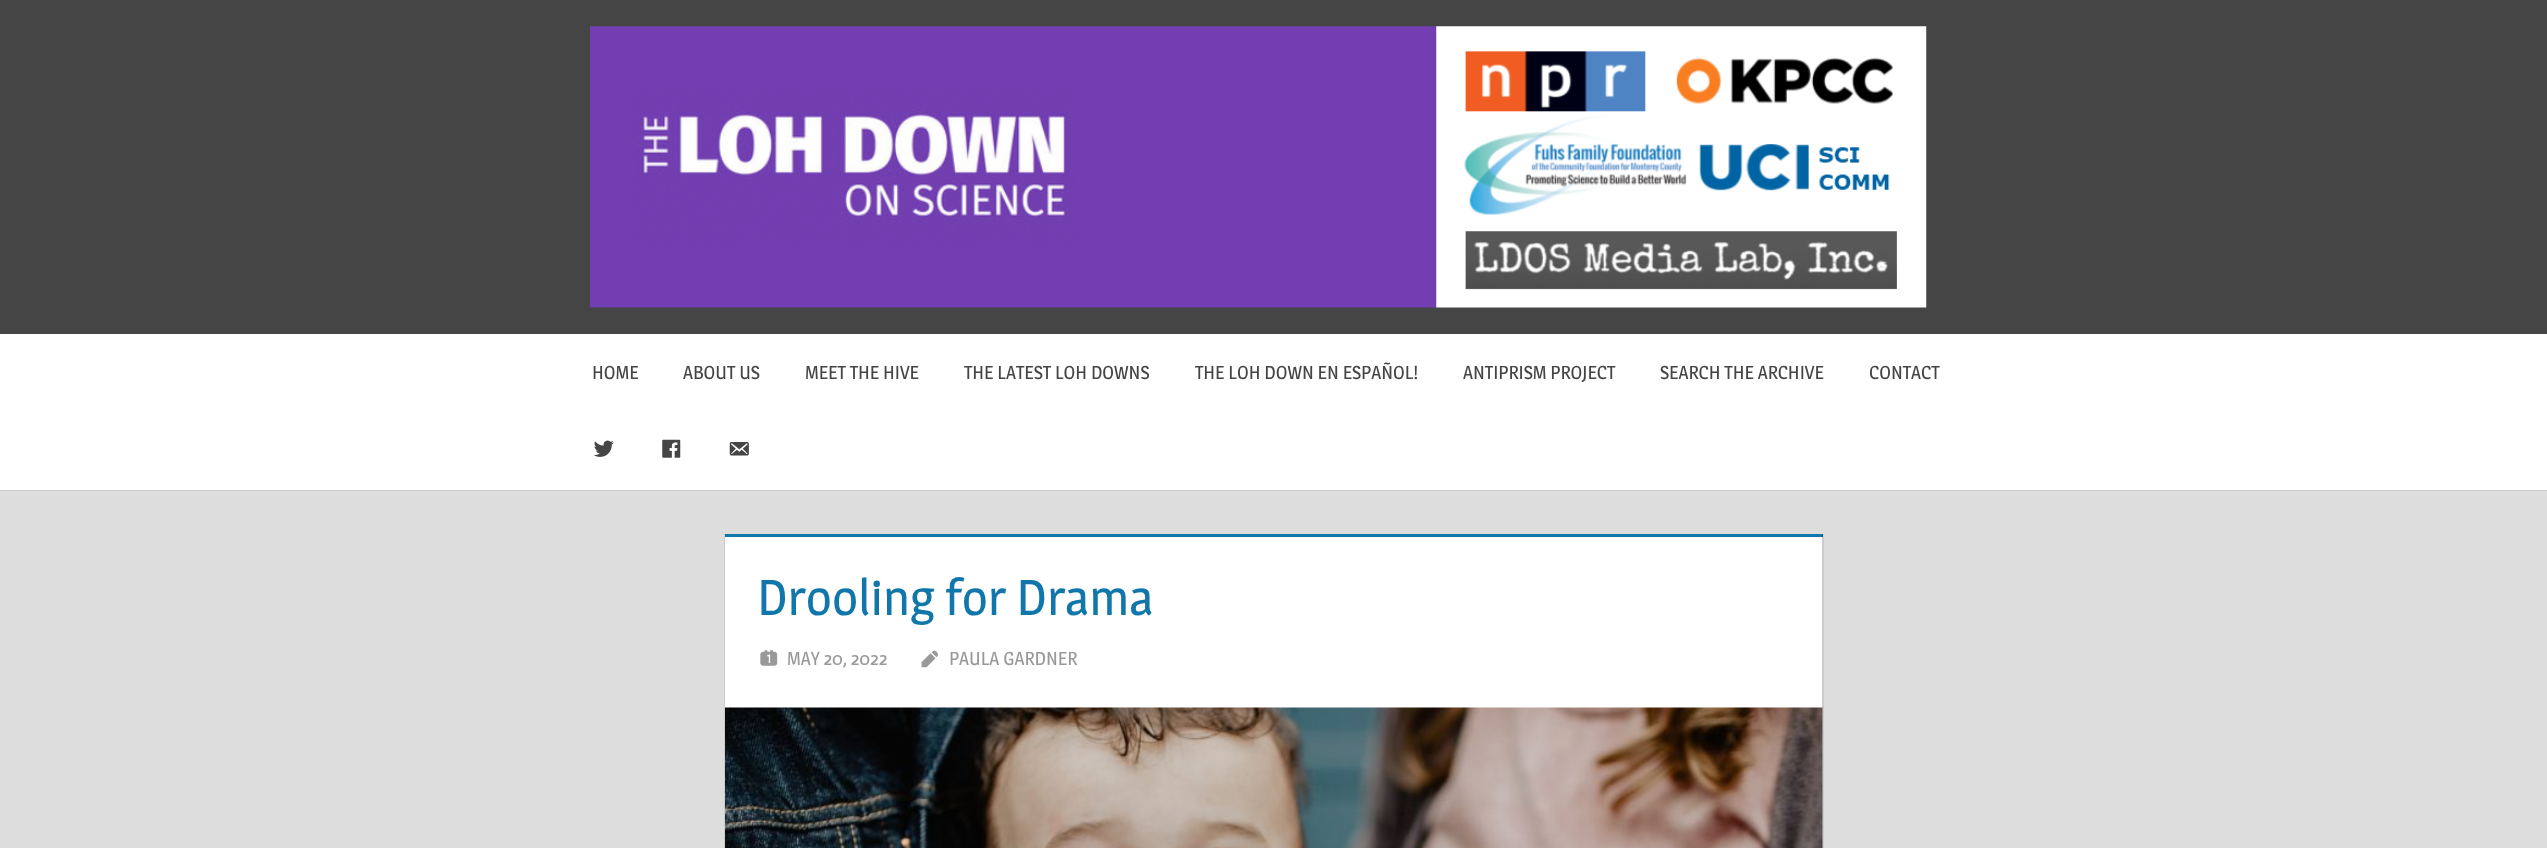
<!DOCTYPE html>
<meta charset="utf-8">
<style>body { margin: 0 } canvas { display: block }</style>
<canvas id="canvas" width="2547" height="848"></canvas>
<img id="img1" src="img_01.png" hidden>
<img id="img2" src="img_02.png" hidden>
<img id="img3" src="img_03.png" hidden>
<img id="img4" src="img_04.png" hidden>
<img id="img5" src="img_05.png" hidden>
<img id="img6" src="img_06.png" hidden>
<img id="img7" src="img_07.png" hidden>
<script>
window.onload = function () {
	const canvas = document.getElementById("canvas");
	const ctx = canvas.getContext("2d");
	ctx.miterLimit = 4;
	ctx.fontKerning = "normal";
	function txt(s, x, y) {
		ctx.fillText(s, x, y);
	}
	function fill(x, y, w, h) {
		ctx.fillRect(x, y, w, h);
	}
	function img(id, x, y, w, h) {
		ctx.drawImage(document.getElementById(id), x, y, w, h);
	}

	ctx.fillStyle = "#DDDDDD";
	fill(0, 0, 2547, 848);
	ctx.fillStyle = "#454545";
	fill(0, 0, 2547, 334);
	img("img1", 590, 26, 1337, 282);
	ctx.fillStyle = "#FFFFFF";
	fill(0, 334, 2547, 156);
	ctx.fillStyle = "#CCCCCC";
	fill(0, 490, 2547, 1);
	img("img2", 593, 440, 21, 17);
	img("img3", 662, 439, 19, 19);
	img("img4", 729, 442, 20, 14);
	ctx.fillStyle = "#FFFFFF";
	fill(725, 534, 1099, 314);
	ctx.fillStyle = "#1177AA";
	fill(725, 534, 1098, 3);
	ctx.fillStyle = "rgba(0, 0, 0, 0.2)";
	ctx.beginPath();
	ctx.moveTo(1824, 534);
	ctx.lineTo(1824, 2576);
	ctx.lineTo(1822, 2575);
	ctx.lineTo(1822, 534);
	ctx.closePath();
	ctx.fill();
	ctx.fillStyle = "#CCCCCC";
	ctx.beginPath();
	ctx.moveTo(724, 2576);
	ctx.lineTo(724, 534);
	ctx.lineTo(725, 534);
	ctx.lineTo(725, 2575);
	ctx.closePath();
	ctx.fill();
	img("img5", 760, 650, 18, 16);
	img("img6", 921, 650, 17, 18);
	img("img7", 725, 707, 1098, 141);
	ctx.font = "18.75px Magra";
	ctx.fillStyle = "#454545";
	txt("HOME", 592, 379);
	txt("ABOUT US", 683, 379);
	txt("MEET THE HIVE", 805, 379);
	txt("THE LATEST LOH DOWNS", 964, 379);
	txt("THE LOH DOWN EN ESPAÑOL!", 1195, 379);
	txt("ANTIPRISM PROJECT", 1463, 379);
	txt("SEARCH THE ARCHIVE", 1660, 379);
	txt("CONTACT", 1869, 379);
	ctx.font = "50px Magra";
	ctx.fillStyle = "#1177AA";
	txt("Drooling for Drama", 757, 615);
	ctx.font = "18.75px Magra";
	ctx.fillStyle = "#999999";
	txt("MAY 20, 2022", 787, 665);
	txt("PAULA GARDNER", 949, 665);
};
</script>
